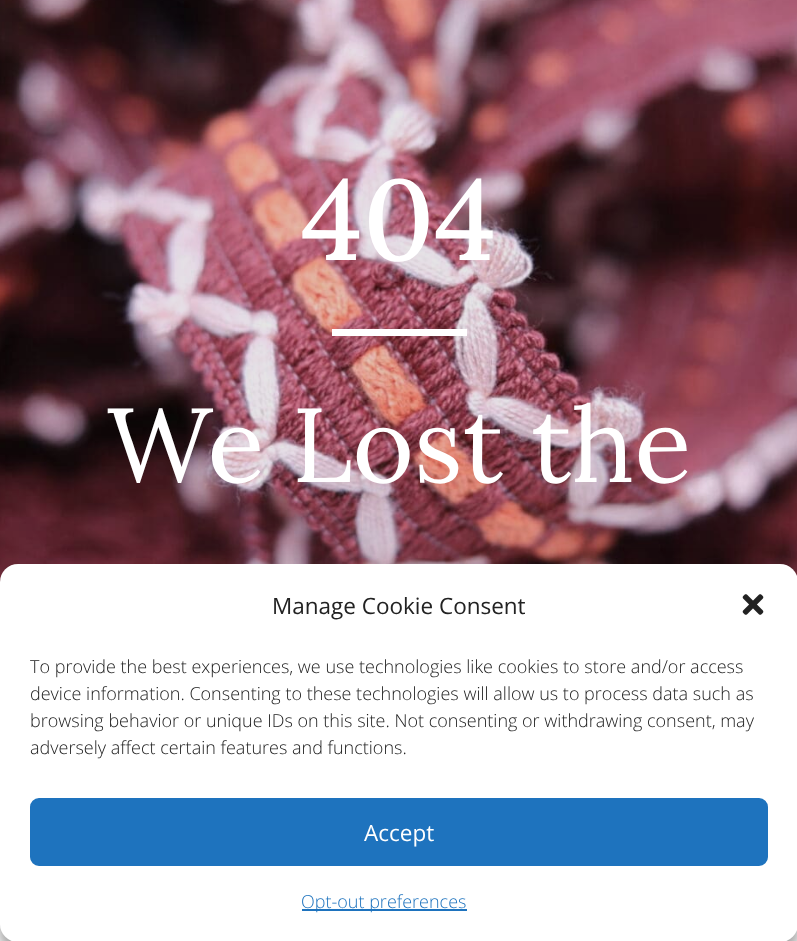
<!DOCTYPE html>
<meta charset="utf-8">
<style>body { margin: 0 } canvas { display: block }</style>
<canvas id="canvas" width="797" height="941"></canvas>
<img id="img1" src="img_01.png" hidden>
<img id="img2" src="img_02.png" hidden>
<script>
window.onload = function () {
	const canvas = document.getElementById("canvas");
	const ctx = canvas.getContext("2d");
	ctx.miterLimit = 4;
	ctx.fontKerning = "normal";
	function txt(s, x, y) {
		ctx.fillText(s, x, y);
	}
	function fill(x, y, w, h) {
		ctx.fillRect(x, y, w, h);
	}
	function round(x, y, w, h, r) {
		ctx.beginPath();
		ctx.roundRect(x, y, w, h, r);
		ctx.fill();
	}
	function img(id, x, y, w, h) {
		ctx.drawImage(document.getElementById(id), x, y, w, h);
	}

	ctx.fillStyle = "#FFFFFF";
	fill(0, 0, 797, 941);
	img("img1", 0, 0, 797, 582);
	fill(332, 329, 135, 7);
	ctx.fillStyle = "rgba(0, 0, 0, 0.23)";
	ctx.filter = "blur(4.5px)";
	ctx.beginPath();
	ctx.roundRect(0, 573, 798, 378, 18);
	ctx.fill();
	ctx.filter = "none";
	ctx.fillStyle = "rgba(0, 0, 0, 0.19)";
	ctx.filter = "blur(15px)";
	ctx.beginPath();
	ctx.roundRect(0, 579, 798, 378, 18);
	ctx.fill();
	ctx.filter = "none";
	ctx.fillStyle = "#FFFFFF";
	round(0, 564, 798, 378, 18);
	img("img2", 742, 594, 22, 21);
	ctx.fillStyle = "#1E73BE";
	ctx.beginPath();
	ctx.roundRect(31, 799, 736, 66, 8);
	ctx.fill();
	ctx.strokeStyle = "#1E73BE";
	ctx.lineWidth = 2;
	ctx.stroke();
	fill(302, 909, 165, 2);
	ctx.font = "500 114px Lora";
	ctx.fillStyle = "#FFFFFF";
	txt("404", 301, 260);
	ctx.font = "105px Lora";
	txt("We Lost the", 107, 482);
	ctx.font = "22.5px Open Sans";
	ctx.fillStyle = "#222222";
	txt("Manage Cookie Consent", 272, 614);
	ctx.font = "300 18px Open Sans";
	txt("To provide the best experiences, we use technologies like cookies to store and/or access", 30, 673);
	txt("device information. Consenting to these technologies will allow us to process data such as", 30, 700);
	txt("browsing behavior or unique IDs on this site. Not consenting or withdrawing consent, may", 30, 727);
	txt("adversely affect certain features and functions.", 30, 754);
	ctx.font = "22.5px Open Sans";
	ctx.fillStyle = "#FFFFFF";
	txt("Accept", 364, 841);
	ctx.font = "300 18px Open Sans";
	ctx.fillStyle = "#1E73BE";
	txt("Opt-out preferences", 301, 908);
};
</script>
